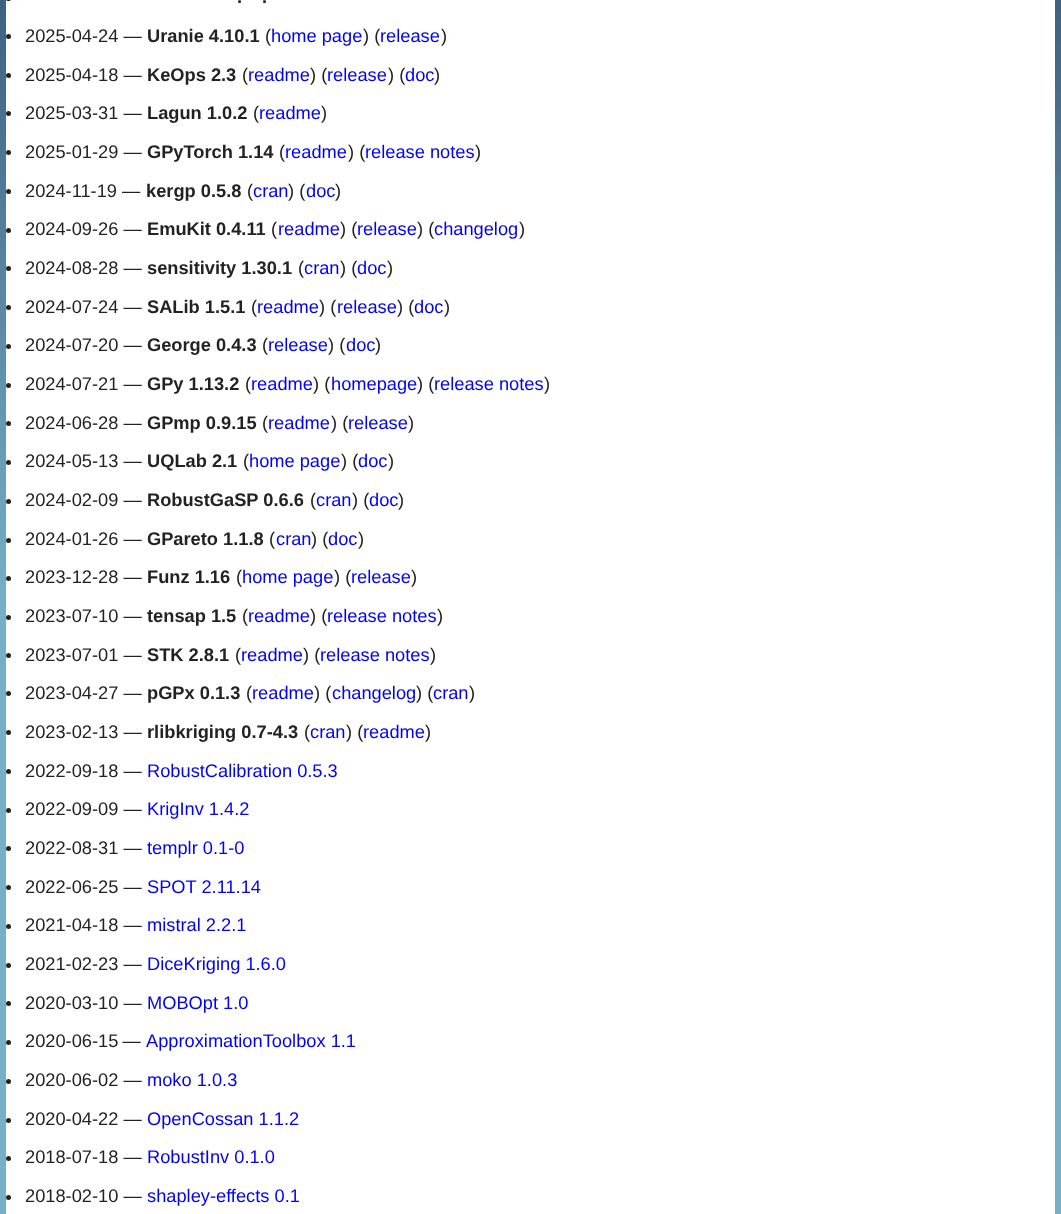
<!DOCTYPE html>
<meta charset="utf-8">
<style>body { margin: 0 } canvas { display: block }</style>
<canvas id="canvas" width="1061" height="1214"></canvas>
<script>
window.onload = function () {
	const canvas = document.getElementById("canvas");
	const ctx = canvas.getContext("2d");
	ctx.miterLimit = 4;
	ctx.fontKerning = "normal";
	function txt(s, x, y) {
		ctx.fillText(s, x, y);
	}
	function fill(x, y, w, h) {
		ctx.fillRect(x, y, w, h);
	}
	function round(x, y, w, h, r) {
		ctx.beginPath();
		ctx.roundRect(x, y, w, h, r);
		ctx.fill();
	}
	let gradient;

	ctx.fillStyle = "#FFFFFF";
	fill(0, 0, 1061, 1214);
	gradient = ctx.createLinearGradient(531, 0, 531, 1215);
	gradient.addColorStop(0, "#3E6182");
	gradient.addColorStop(0.5, "#76B0C8");
	ctx.fillStyle = gradient;
	fill(0, 0, 1061, 1214);
	ctx.fillStyle = "#FFFFFF";
	fill(6, 0, 1049, 1214);
	ctx.fillStyle = "#222222";
	round(6, -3, 5, 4, 2.5);
	ctx.beginPath();
	ctx.arc(8.5, 36.5, 2.5, 0, Math.PI * 2);
	ctx.fill();
	ctx.beginPath();
	ctx.arc(8.5, 75.5, 2.5, 0, Math.PI * 2);
	ctx.fill();
	ctx.beginPath();
	ctx.arc(8.5, 113.5, 2.5, 0, Math.PI * 2);
	ctx.fill();
	ctx.beginPath();
	ctx.arc(8.5, 152.5, 2.5, 0, Math.PI * 2);
	ctx.fill();
	ctx.beginPath();
	ctx.arc(8.5, 191.5, 2.5, 0, Math.PI * 2);
	ctx.fill();
	ctx.beginPath();
	ctx.arc(8.5, 230.5, 2.5, 0, Math.PI * 2);
	ctx.fill();
	ctx.beginPath();
	ctx.arc(8.5, 268.5, 2.5, 0, Math.PI * 2);
	ctx.fill();
	ctx.beginPath();
	ctx.arc(8.5, 307.5, 2.5, 0, Math.PI * 2);
	ctx.fill();
	ctx.beginPath();
	ctx.arc(8.5, 346.5, 2.5, 0, Math.PI * 2);
	ctx.fill();
	ctx.beginPath();
	ctx.arc(8.5, 385.5, 2.5, 0, Math.PI * 2);
	ctx.fill();
	ctx.beginPath();
	ctx.arc(8.5, 423.5, 2.5, 0, Math.PI * 2);
	ctx.fill();
	ctx.beginPath();
	ctx.arc(8.5, 462.5, 2.5, 0, Math.PI * 2);
	ctx.fill();
	ctx.beginPath();
	ctx.arc(8.5, 501.5, 2.5, 0, Math.PI * 2);
	ctx.fill();
	ctx.beginPath();
	ctx.arc(8.5, 540.5, 2.5, 0, Math.PI * 2);
	ctx.fill();
	ctx.beginPath();
	ctx.arc(8.5, 578.5, 2.5, 0, Math.PI * 2);
	ctx.fill();
	ctx.beginPath();
	ctx.arc(8.5, 617.5, 2.5, 0, Math.PI * 2);
	ctx.fill();
	ctx.beginPath();
	ctx.arc(8.5, 655.5, 2.5, 0, Math.PI * 2);
	ctx.fill();
	ctx.beginPath();
	ctx.arc(8.5, 693.5, 2.5, 0, Math.PI * 2);
	ctx.fill();
	ctx.beginPath();
	ctx.arc(8.5, 732.5, 2.5, 0, Math.PI * 2);
	ctx.fill();
	ctx.beginPath();
	ctx.arc(8.5, 771.5, 2.5, 0, Math.PI * 2);
	ctx.fill();
	ctx.beginPath();
	ctx.arc(8.5, 810.5, 2.5, 0, Math.PI * 2);
	ctx.fill();
	ctx.beginPath();
	ctx.arc(8.5, 848.5, 2.5, 0, Math.PI * 2);
	ctx.fill();
	ctx.beginPath();
	ctx.arc(8.5, 887.5, 2.5, 0, Math.PI * 2);
	ctx.fill();
	ctx.beginPath();
	ctx.arc(8.5, 926.5, 2.5, 0, Math.PI * 2);
	ctx.fill();
	ctx.beginPath();
	ctx.arc(8.5, 965.5, 2.5, 0, Math.PI * 2);
	ctx.fill();
	ctx.beginPath();
	ctx.arc(8.5, 1003.5, 2.5, 0, Math.PI * 2);
	ctx.fill();
	ctx.beginPath();
	ctx.arc(8.5, 1042.5, 2.5, 0, Math.PI * 2);
	ctx.fill();
	ctx.beginPath();
	ctx.arc(8.5, 1081.5, 2.5, 0, Math.PI * 2);
	ctx.fill();
	ctx.beginPath();
	ctx.arc(8.5, 1120.5, 2.5, 0, Math.PI * 2);
	ctx.fill();
	ctx.beginPath();
	ctx.arc(8.5, 1158.5, 2.5, 0, Math.PI * 2);
	ctx.fill();
	ctx.beginPath();
	ctx.arc(8.5, 1197.5, 2.5, 0, Math.PI * 2);
	ctx.fill();
	ctx.font = "bold 18.25px Liberation Sans";
	txt(".", 237, 3);
	txt(".", 262, 3);
	ctx.font = "18.25px Liberation Sans";
	txt("2025-04-24 —", 25, 42);
	ctx.font = "bold 18.25px Liberation Sans";
	txt("Uranie 4.10.1", 147, 42);
	ctx.font = "18.25px Liberation Sans";
	txt("(", 265, 42);
	ctx.fillStyle = "#0000FF";
	txt("home page", 271, 42);
	ctx.fillStyle = "#222222";
	txt(") (", 363, 42);
	ctx.fillStyle = "#0000FF";
	txt("release", 380, 42);
	ctx.fillStyle = "#222222";
	txt(")", 441, 42);
	txt("2025-04-18 —", 25, 81);
	ctx.font = "bold 18.25px Liberation Sans";
	txt("KeOps 2.3", 147, 81);
	ctx.font = "18.25px Liberation Sans";
	txt("(", 242, 81);
	ctx.fillStyle = "#0000FF";
	txt("readme", 248, 81);
	ctx.fillStyle = "#222222";
	txt(") (", 310, 81);
	ctx.fillStyle = "#0000FF";
	txt("release", 327, 81);
	ctx.fillStyle = "#222222";
	txt(") (", 388, 81);
	ctx.fillStyle = "#0000FF";
	txt("doc", 405, 81);
	ctx.fillStyle = "#222222";
	txt(")", 434, 81);
	txt("2025-03-31 —", 25, 119);
	ctx.font = "bold 18.25px Liberation Sans";
	txt("Lagun 1.0.2", 147, 119);
	ctx.font = "18.25px Liberation Sans";
	txt("(", 253, 119);
	ctx.fillStyle = "#0000FF";
	txt("readme", 259, 119);
	ctx.fillStyle = "#222222";
	txt(")", 321, 119);
	txt("2025-01-29 —", 25, 158);
	ctx.font = "bold 18.25px Liberation Sans";
	txt("GPyTorch 1.14", 147, 158);
	ctx.font = "18.25px Liberation Sans";
	txt("(", 279, 158);
	ctx.fillStyle = "#0000FF";
	txt("readme", 285, 158);
	ctx.fillStyle = "#222222";
	txt(") (", 348, 158);
	ctx.fillStyle = "#0000FF";
	txt("release notes", 365, 158);
	ctx.fillStyle = "#222222";
	txt(")", 475, 158);
	txt("2024-11-19 —", 25, 197);
	ctx.font = "bold 18.25px Liberation Sans";
	txt("kergp 0.5.8", 146, 197);
	ctx.font = "18.25px Liberation Sans";
	txt("(", 247, 197);
	ctx.fillStyle = "#0000FF";
	txt("cran", 253, 197);
	ctx.fillStyle = "#222222";
	txt(") (", 288, 197);
	ctx.fillStyle = "#0000FF";
	txt("doc", 306, 197);
	ctx.fillStyle = "#222222";
	txt(")", 335, 197);
	txt("2024-09-26 —", 25, 235);
	ctx.font = "bold 18.25px Liberation Sans";
	txt("EmuKit 0.4.11", 147, 235);
	ctx.font = "18.25px Liberation Sans";
	txt("(", 271, 235);
	ctx.fillStyle = "#0000FF";
	txt("readme", 278, 235);
	ctx.fillStyle = "#222222";
	txt(") (", 340, 235);
	ctx.fillStyle = "#0000FF";
	txt("release", 357, 235);
	ctx.fillStyle = "#222222";
	txt(") (", 417, 235);
	ctx.fillStyle = "#0000FF";
	txt("changelog", 434, 235);
	ctx.fillStyle = "#222222";
	txt(")", 519, 235);
	txt("2024-08-28 —", 25, 274);
	ctx.font = "bold 18.25px Liberation Sans";
	txt("sensitivity 1.30.1", 147, 274);
	ctx.font = "18.25px Liberation Sans";
	txt("(", 298, 274);
	ctx.fillStyle = "#0000FF";
	txt("cran", 304, 274);
	ctx.fillStyle = "#222222";
	txt(") (", 340, 274);
	ctx.fillStyle = "#0000FF";
	txt("doc", 357, 274);
	ctx.fillStyle = "#222222";
	txt(")", 387, 274);
	txt("2024-07-24 —", 25, 313);
	ctx.font = "bold 18.25px Liberation Sans";
	txt("SALib 1.5.1", 147, 313);
	ctx.font = "18.25px Liberation Sans";
	txt("(", 251, 313);
	ctx.fillStyle = "#0000FF";
	txt("readme", 257, 313);
	ctx.fillStyle = "#222222";
	txt(") (", 319, 313);
	ctx.fillStyle = "#0000FF";
	txt("release", 337, 313);
	ctx.fillStyle = "#222222";
	txt(") (", 397, 313);
	ctx.fillStyle = "#0000FF";
	txt("doc", 414, 313);
	ctx.fillStyle = "#222222";
	txt(")", 444, 313);
	txt("2024-07-20 —", 25, 351);
	ctx.font = "bold 18.25px Liberation Sans";
	txt("George 0.4.3", 147, 351);
	ctx.font = "18.25px Liberation Sans";
	txt("(", 262, 351);
	ctx.fillStyle = "#0000FF";
	txt("release", 268, 351);
	ctx.fillStyle = "#222222";
	txt(") (", 328, 351);
	ctx.fillStyle = "#0000FF";
	txt("doc", 346, 351);
	ctx.fillStyle = "#222222";
	txt(")", 375, 351);
	txt("2024-07-21 —", 25, 390);
	ctx.font = "bold 18.25px Liberation Sans";
	txt("GPy 1.13.2", 147, 390);
	ctx.font = "18.25px Liberation Sans";
	txt("(", 245, 390);
	ctx.fillStyle = "#0000FF";
	txt("readme", 251, 390);
	ctx.fillStyle = "#222222";
	txt(") (", 313, 390);
	ctx.fillStyle = "#0000FF";
	txt("homepage", 331, 390);
	ctx.fillStyle = "#222222";
	txt(") (", 417, 390);
	ctx.fillStyle = "#0000FF";
	txt("release notes", 434, 390);
	ctx.fillStyle = "#222222";
	txt(")", 544, 390);
	txt("2024-06-28 —", 25, 429);
	ctx.font = "bold 18.25px Liberation Sans";
	txt("GPmp 0.9.15", 147, 429);
	ctx.font = "18.25px Liberation Sans";
	txt("(", 262, 429);
	ctx.fillStyle = "#0000FF";
	txt("readme", 268, 429);
	ctx.fillStyle = "#222222";
	txt(") (", 331, 429);
	ctx.fillStyle = "#0000FF";
	txt("release", 348, 429);
	ctx.fillStyle = "#222222";
	txt(")", 408, 429);
	txt("2024-05-13 —", 25, 467);
	ctx.font = "bold 18.25px Liberation Sans";
	txt("UQLab 2.1", 147, 467);
	ctx.font = "18.25px Liberation Sans";
	txt("(", 243, 467);
	ctx.fillStyle = "#0000FF";
	txt("home page", 249, 467);
	ctx.fillStyle = "#222222";
	txt(") (", 341, 467);
	ctx.fillStyle = "#0000FF";
	txt("doc", 358, 467);
	ctx.fillStyle = "#222222";
	txt(")", 388, 467);
	txt("2024-02-09 —", 25, 506);
	ctx.font = "bold 18.25px Liberation Sans";
	txt("RobustGaSP 0.6.6", 147, 506);
	ctx.font = "18.25px Liberation Sans";
	txt("(", 310, 506);
	ctx.fillStyle = "#0000FF";
	txt("cran", 316, 506);
	ctx.fillStyle = "#222222";
	txt(") (", 352, 506);
	ctx.fillStyle = "#0000FF";
	txt("doc", 369, 506);
	ctx.fillStyle = "#222222";
	txt(")", 398, 506);
	txt("2024-01-26 —", 25, 545);
	ctx.font = "bold 18.25px Liberation Sans";
	txt("GPareto 1.1.8", 147, 545);
	ctx.font = "18.25px Liberation Sans";
	txt("(", 269, 545);
	ctx.fillStyle = "#0000FF";
	txt("cran", 276, 545);
	ctx.fillStyle = "#222222";
	txt(") (", 311, 545);
	ctx.fillStyle = "#0000FF";
	txt("doc", 328, 545);
	ctx.fillStyle = "#222222";
	txt(")", 358, 545);
	txt("2023-12-28 —", 25, 583);
	ctx.font = "bold 18.25px Liberation Sans";
	txt("Funz 1.16", 147, 583);
	ctx.font = "18.25px Liberation Sans";
	txt("(", 236, 583);
	ctx.fillStyle = "#0000FF";
	txt("home page", 242, 583);
	ctx.fillStyle = "#222222";
	txt(") (", 334, 583);
	ctx.fillStyle = "#0000FF";
	txt("release", 351, 583);
	ctx.fillStyle = "#222222";
	txt(")", 411, 583);
	txt("2023-07-10 —", 25, 622);
	ctx.font = "bold 18.25px Liberation Sans";
	txt("tensap 1.5", 147, 622);
	ctx.font = "18.25px Liberation Sans";
	txt("(", 242, 622);
	ctx.fillStyle = "#0000FF";
	txt("readme", 248, 622);
	ctx.fillStyle = "#222222";
	txt(") (", 310, 622);
	ctx.fillStyle = "#0000FF";
	txt("release notes", 327, 622);
	ctx.fillStyle = "#222222";
	txt(")", 437, 622);
	txt("2023-07-01 —", 25, 661);
	ctx.font = "bold 18.25px Liberation Sans";
	txt("STK 2.8.1", 147, 661);
	ctx.font = "18.25px Liberation Sans";
	txt("(", 235, 661);
	ctx.fillStyle = "#0000FF";
	txt("readme", 241, 661);
	ctx.fillStyle = "#222222";
	txt(") (", 303, 661);
	ctx.fillStyle = "#0000FF";
	txt("release notes", 320, 661);
	ctx.fillStyle = "#222222";
	txt(")", 430, 661);
	txt("2023-04-27 —", 25, 699);
	ctx.font = "bold 18.25px Liberation Sans";
	txt("pGPx 0.1.3", 147, 699);
	ctx.font = "18.25px Liberation Sans";
	txt("(", 246, 699);
	ctx.fillStyle = "#0000FF";
	txt("readme", 252, 699);
	ctx.fillStyle = "#222222";
	txt(") (", 314, 699);
	ctx.fillStyle = "#0000FF";
	txt("changelog", 332, 699);
	ctx.fillStyle = "#222222";
	txt(") (", 416, 699);
	ctx.fillStyle = "#0000FF";
	txt("cran", 433, 699);
	ctx.fillStyle = "#222222";
	txt(")", 469, 699);
	txt("2023-02-13 —", 25, 738);
	ctx.font = "bold 18.25px Liberation Sans";
	txt("rlibkriging 0.7-4.3", 147, 738);
	ctx.font = "18.25px Liberation Sans";
	txt("(", 304, 738);
	ctx.fillStyle = "#0000FF";
	txt("cran", 310, 738);
	ctx.fillStyle = "#222222";
	txt(") (", 346, 738);
	ctx.fillStyle = "#0000FF";
	txt("readme", 363, 738);
	ctx.fillStyle = "#222222";
	txt(")", 425, 738);
	txt("2022-09-18 —", 25, 777);
	ctx.fillStyle = "#0000FF";
	txt("RobustCalibration 0.5.3", 147, 777);
	ctx.fillStyle = "#222222";
	txt("2022-09-09 —", 25, 815);
	ctx.fillStyle = "#0000FF";
	txt("KrigInv 1.4.2", 147, 815);
	ctx.fillStyle = "#222222";
	txt("2022-08-31 —", 25, 854);
	ctx.fillStyle = "#0000FF";
	txt("templr 0.1-0", 147, 854);
	ctx.fillStyle = "#222222";
	txt("2022-06-25 —", 25, 893);
	ctx.fillStyle = "#0000FF";
	txt("SPOT 2.11.14", 147, 893);
	ctx.fillStyle = "#222222";
	txt("2021-04-18 —", 25, 931);
	ctx.fillStyle = "#0000FF";
	txt("mistral 2.2.1", 147, 931);
	ctx.fillStyle = "#222222";
	txt("2021-02-23 —", 25, 970);
	ctx.fillStyle = "#0000FF";
	txt("DiceKriging 1.6.0", 147, 970);
	ctx.fillStyle = "#222222";
	txt("2020-03-10 —", 25, 1009);
	ctx.fillStyle = "#0000FF";
	txt("MOBOpt 1.0", 147, 1009);
	ctx.wordSpacing = "-1px";
	ctx.fillStyle = "#222222";
	txt("2020-06-15 —", 25, 1047);
	ctx.wordSpacing = "0px";
	ctx.fillStyle = "#0000FF";
	txt("ApproximationToolbox 1.1", 146, 1047);
	ctx.fillStyle = "#222222";
	txt("2020-06-02 —", 25, 1086);
	ctx.fillStyle = "#0000FF";
	txt("moko 1.0.3", 147, 1086);
	ctx.fillStyle = "#222222";
	txt("2020-04-22 —", 25, 1125);
	ctx.fillStyle = "#0000FF";
	txt("OpenCossan 1.1.2", 147, 1125);
	ctx.fillStyle = "#222222";
	txt("2018-07-18 —", 25, 1163);
	ctx.fillStyle = "#0000FF";
	txt("RobustInv 0.1.0", 147, 1163);
	ctx.fillStyle = "#222222";
	txt("2018-02-10 —", 25, 1202);
	ctx.fillStyle = "#0000FF";
	txt("shapley-effects 0.1", 147, 1202);
};
</script>
